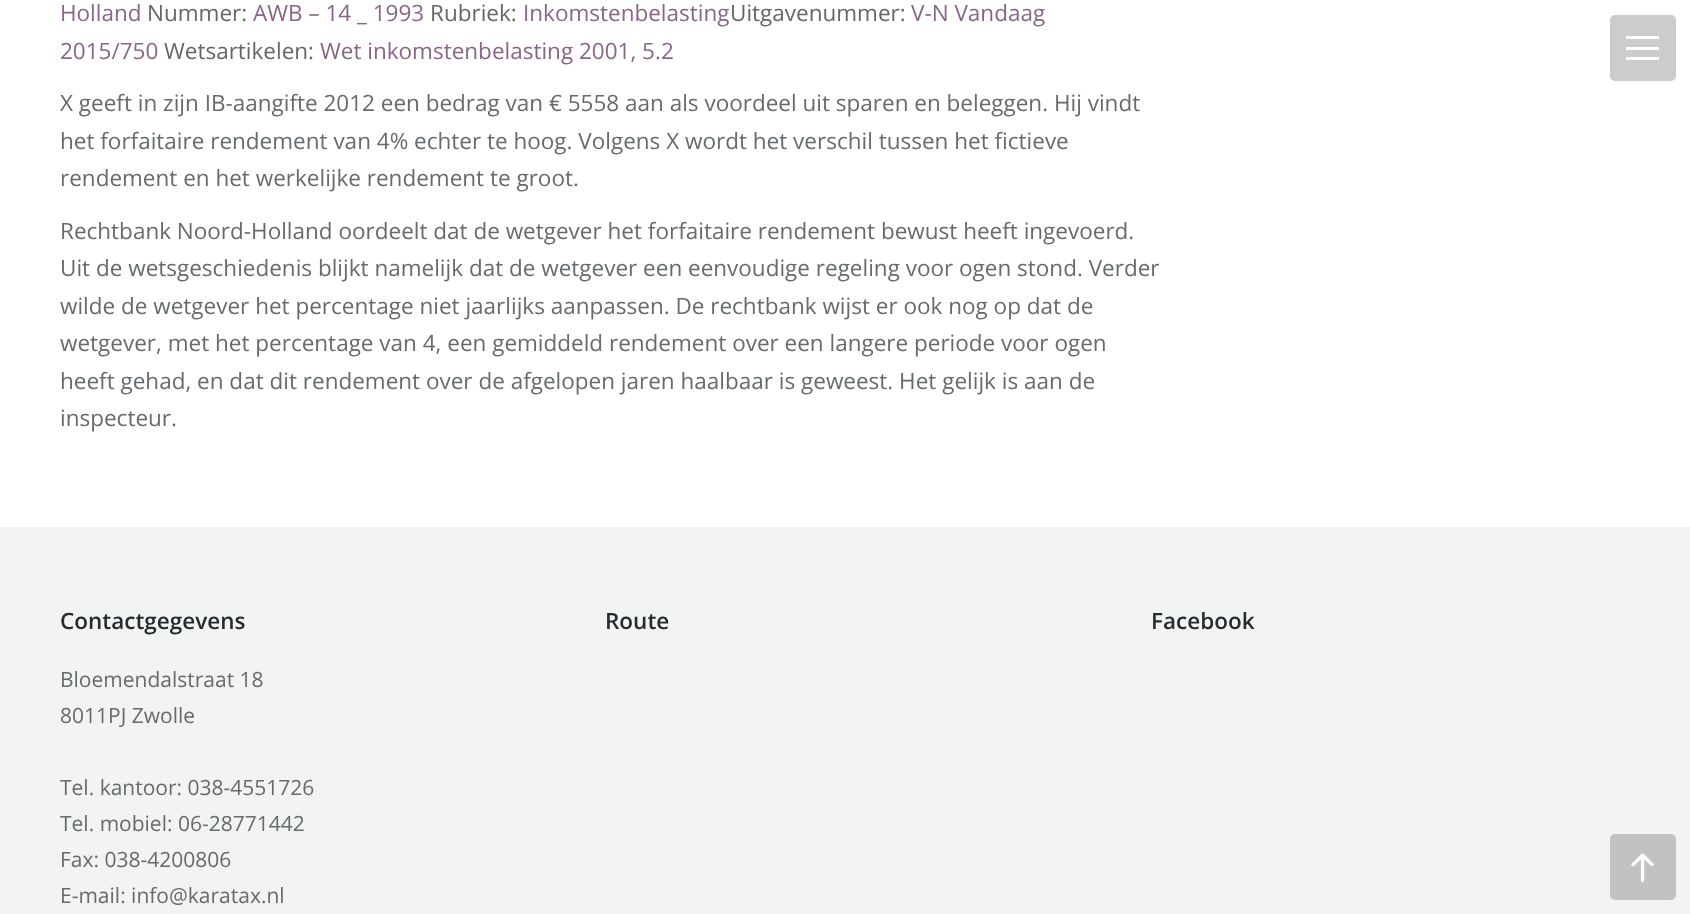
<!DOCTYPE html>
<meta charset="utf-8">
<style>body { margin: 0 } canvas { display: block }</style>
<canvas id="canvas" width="1690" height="914"></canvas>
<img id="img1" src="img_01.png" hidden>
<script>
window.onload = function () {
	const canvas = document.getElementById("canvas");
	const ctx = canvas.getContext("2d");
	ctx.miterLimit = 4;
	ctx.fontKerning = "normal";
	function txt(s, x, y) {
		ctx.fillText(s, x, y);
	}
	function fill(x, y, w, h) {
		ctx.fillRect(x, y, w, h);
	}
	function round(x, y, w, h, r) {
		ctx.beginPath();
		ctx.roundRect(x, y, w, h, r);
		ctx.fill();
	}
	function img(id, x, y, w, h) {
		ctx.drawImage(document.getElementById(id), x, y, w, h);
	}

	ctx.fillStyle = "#FFFFFF";
	fill(0, 0, 1690, 914);
	ctx.fillStyle = "#CCCCCC";
	round(1610, 15, 66, 66, 5);
	ctx.fillStyle = "#FFFFFF";
	fill(1626, 47, 33, 3);
	fill(1626, 36, 33, 3);
	fill(1626, 57, 33, 3);
	ctx.fillStyle = "#F2F3F3";
	fill(0, 527, 1690, 387);
	ctx.fillStyle = "#C2C2C2";
	round(1610, 834, 66, 66, 5);
	img("img1", 1631, 853, 23, 29);
	ctx.font = "22.5px Open Sans";
	ctx.fillStyle = "#886688";
	txt("Holland", 60, 21);
	ctx.fillStyle = "#666666";
	txt("Nummer:", 147, 21);
	ctx.fillStyle = "#886688";
	txt("AWB – 14 _ 1993", 253, 21);
	ctx.fillStyle = "#666666";
	txt("Rubriek:", 430, 21);
	ctx.fillStyle = "#886688";
	txt("Inkomstenbelasting", 523, 21);
	ctx.fillStyle = "#666666";
	txt("Uitgavenummer:", 730, 21);
	ctx.fillStyle = "#886688";
	txt("V-N Vandaag", 911, 21);
	txt("2015/750", 60, 59);
	ctx.fillStyle = "#666666";
	txt("Wetsartikelen:", 164, 59);
	ctx.fillStyle = "#886688";
	txt("Wet inkomstenbelasting 2001, 5.2", 320, 59);
	ctx.fillStyle = "#676B6D";
	txt("X geeft in zijn IB-aangifte 2012 een bedrag van € 5558 aan als voordeel uit sparen en beleggen. Hij vindt", 60, 111);
	txt("het forfaitaire rendement van 4% echter te hoog. Volgens X wordt het verschil tussen het fictieve", 60, 149);
	txt("rendement en het werkelijke rendement te groot.", 60, 186);
	txt("Rechtbank Noord-Holland oordeelt dat de wetgever het forfaitaire rendement bewust heeft ingevoerd.", 60, 239);
	txt("Uit de wetsgeschiedenis blijkt namelijk dat de wetgever een eenvoudige regeling voor ogen stond. Verder", 60, 276);
	txt("wilde de wetgever het percentage niet jaarlijks aanpassen. De rechtbank wijst er ook nog op dat de", 60, 314);
	txt("wetgever, met het percentage van 4, een gemiddeld rendement over een langere periode voor ogen", 60, 351);
	txt("heeft gehad, en dat dit rendement over de afgelopen jaren haalbaar is geweest. Het gelijk is aan de", 60, 389);
	txt("inspecteur.", 60, 426);
	ctx.font = "600 22.5px Open Sans";
	ctx.fillStyle = "#262B2E";
	txt("Contactgegevens", 60, 629);
	ctx.font = "21px Open Sans";
	ctx.fillStyle = "#676B6D";
	txt("Bloemendalstraat 18", 60, 687);
	txt("8011PJ Zwolle", 60, 723);
	txt("Tel. kantoor: 038-4551726", 60, 795);
	txt("Tel. mobiel: 06-28771442", 60, 831);
	txt("Fax: 038-4200806", 60, 867);
	txt("E-mail: info@karatax.nl", 60, 903);
	ctx.font = "600 22.5px Open Sans";
	ctx.fillStyle = "#262B2E";
	txt("Route", 605, 629);
	txt("Facebook", 1151, 629);
};
</script>
